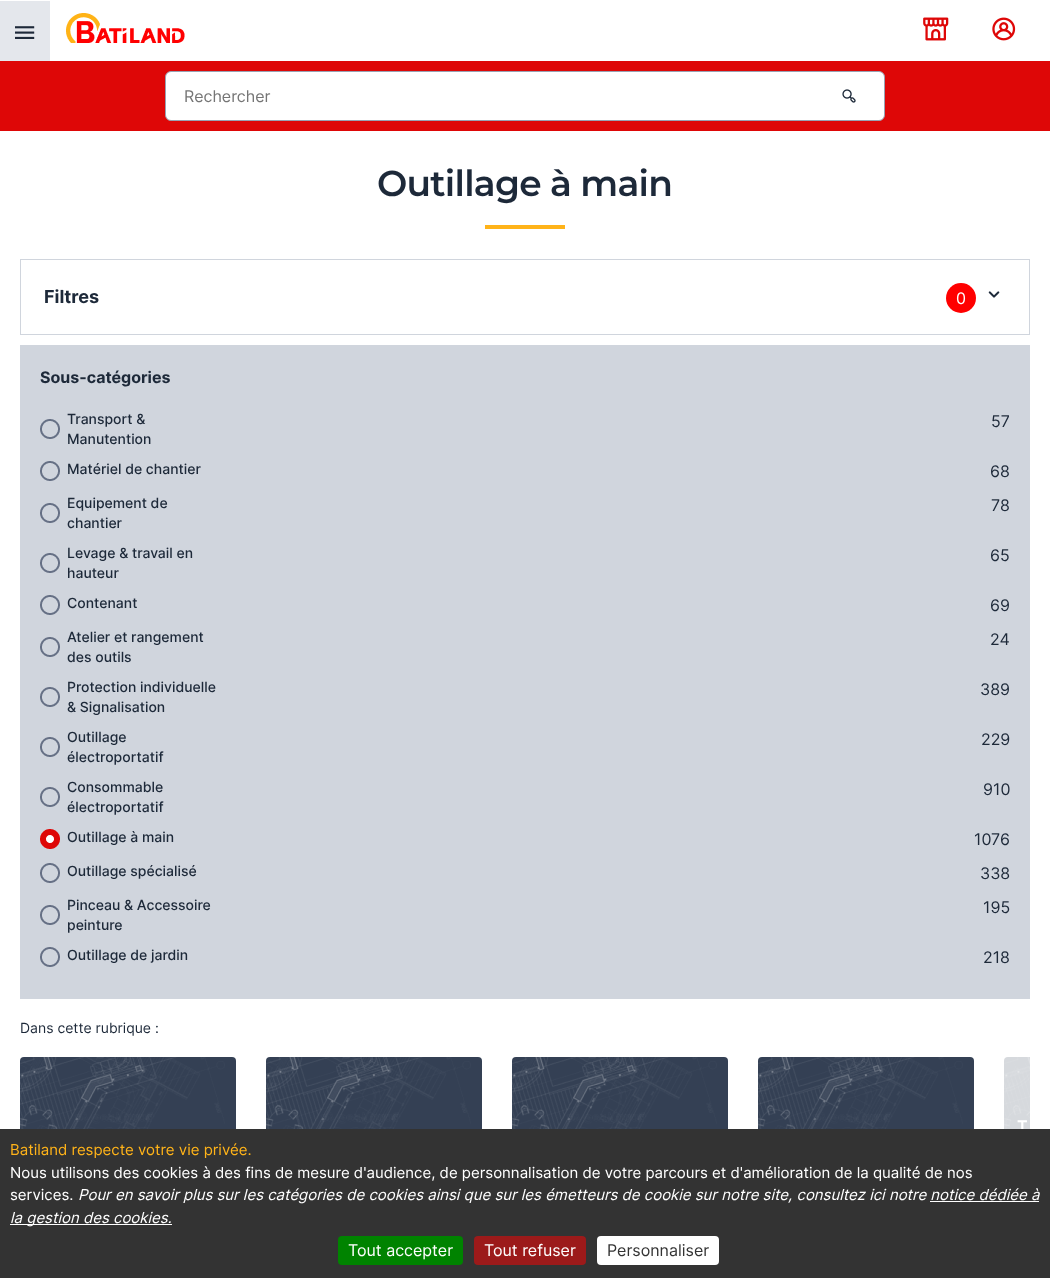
<!DOCTYPE html>
<meta charset="utf-8">
<style>body { margin: 0 } canvas { display: block }</style>
<canvas id="canvas" width="1050" height="1278"></canvas>
<img id="img1" src="img_01.png" hidden>
<img id="img2" src="img_02.png" hidden>
<img id="img3" src="img_03.png" hidden>
<img id="img4" src="img_04.png" hidden>
<img id="img5" src="img_05.png" hidden>
<img id="img6" src="img_06.png" hidden>
<img id="img7" src="img_07.png" hidden>
<img id="img8" src="img_08.png" hidden>
<img id="img9" src="img_09.png" hidden>
<img id="img10" src="img_10.png" hidden>
<script>
window.onload = function () {
	const canvas = document.getElementById("canvas");
	const ctx = canvas.getContext("2d");
	ctx.miterLimit = 4;
	ctx.fontKerning = "normal";
	function txt(s, x, y) {
		ctx.fillText(s, x, y);
	}
	function fill(x, y, w, h) {
		ctx.fillRect(x, y, w, h);
	}
	function round(x, y, w, h, r) {
		ctx.beginPath();
		ctx.roundRect(x, y, w, h, r);
		ctx.fill();
	}
	function img(id, x, y, w, h) {
		ctx.drawImage(document.getElementById(id), x, y, w, h);
	}

	ctx.fillStyle = "#FFFFFF";
	fill(0, 0, 1050, 1278);
	ctx.fillStyle = "#E4E7EC";
	fill(0, 1, 50, 60);
	img("img1", 15, 26, 20, 13);
	img("img2", 66, 13, 119, 30);
	img("img3", 923, 17, 26, 24);
	img("img4", 992, 17, 24, 24);
	ctx.fillStyle = "#DE0707";
	fill(0, 61, 1050, 70);
	ctx.fillStyle = "#FFFFFF";
	ctx.beginPath();
	ctx.roundRect(165.5, 71.5, 719, 49, 5.5);
	ctx.fill();
	ctx.strokeStyle = "#98A2B3";
	ctx.stroke();
	img("img5", 842, 89, 14, 14);
	ctx.fillStyle = "#FFB319";
	fill(485, 225, 80, 4);
	ctx.strokeStyle = "#D0D5DD";
	ctx.strokeRect(20.5, 259.5, 1009, 75);
	ctx.fillStyle = "#FF0000";
	ctx.beginPath();
	ctx.arc(961, 298, 15, 0, Math.PI * 2);
	ctx.fill();
	img("img6", 988, 291, 12, 7);
	ctx.fillStyle = "#D0D5DD";
	fill(20, 345, 1010, 654);
	img("img7", 40, 419, 20, 20);
	img("img7", 40, 461, 20, 20);
	img("img7", 40, 503, 20, 20);
	img("img7", 40, 553, 20, 20);
	img("img7", 40, 595, 20, 20);
	img("img7", 40, 637, 20, 20);
	img("img7", 40, 687, 20, 20);
	img("img7", 40, 737, 20, 20);
	img("img7", 40, 787, 20, 20);
	img("img8", 40, 829, 20, 20);
	img("img7", 40, 863, 20, 20);
	img("img7", 40, 905, 20, 20);
	img("img7", 40, 947, 20, 20);
	ctx.fillStyle = "#344054";
	round(20, 1057, 216, 175, 4);
	img("img9", 20, 1057, 205, 72);
	round(266, 1057, 216, 175, 4);
	img("img9", 266, 1057, 205, 72);
	round(512, 1057, 216, 175, 4);
	img("img9", 512, 1057, 205, 72);
	round(758, 1057, 216, 175, 4);
	img("img9", 758, 1057, 205, 72);
	ctx.fillStyle = "#D6D9DD";
	ctx.beginPath();
	ctx.roundRect(1004, 1057, 26, 175, [4, 0, 0, 4]);
	ctx.fill();
	img("img10", 1004, 1057, 26, 72);
	ctx.font = "16px Inter";
	ctx.fillStyle = "#757575";
	txt("Rechercher", 184, 102);
	ctx.letterSpacing = "-0.75px";
	ctx.font = "100 36px Montserrat";
	ctx.fillStyle = "#1D2939";
	txt("Outillage à main", 377, 196);
	ctx.letterSpacing = "0px";
	ctx.font = "bold 18px Inter";
	txt("Filtres", 44, 303);
	ctx.font = "16px Inter";
	ctx.fillStyle = "#FFFFFF";
	txt("0", 956, 304);
	ctx.font = "bold 16px Inter";
	ctx.fillStyle = "#1D2939";
	txt("Sous-catégories", 40, 383);
	ctx.font = "500 14px Inter";
	txt("Transport &", 67, 424);
	txt("Manutention", 67, 444);
	ctx.font = "16px Inter";
	txt("57", 991, 427);
	ctx.font = "500 14px Inter";
	txt("Matériel de chantier", 67, 474);
	ctx.font = "16px Inter";
	txt("68", 990, 477);
	ctx.font = "500 14px Inter";
	txt("Equipement de", 67, 508);
	txt("chantier", 67, 528);
	ctx.font = "16px Inter";
	txt("78", 991, 511);
	ctx.font = "500 14px Inter";
	txt("Levage & travail en", 67, 558);
	txt("hauteur", 67, 578);
	ctx.font = "16px Inter";
	txt("65", 990, 561);
	ctx.font = "500 14px Inter";
	txt("Contenant", 67, 608);
	ctx.font = "16px Inter";
	txt("69", 990, 611);
	ctx.font = "500 14px Inter";
	txt("Atelier et rangement", 67, 642);
	txt("des outils", 67, 662);
	ctx.font = "16px Inter";
	txt("24", 990, 645);
	ctx.font = "500 14px Inter";
	txt("Protection individuelle", 67, 692);
	txt("& Signalisation", 67, 712);
	ctx.font = "16px Inter";
	txt("389", 980, 695);
	ctx.font = "500 14px Inter";
	txt("Outillage", 67, 742);
	txt("électroportatif", 67, 762);
	ctx.font = "16px Inter";
	txt("229", 981, 745);
	ctx.font = "500 14px Inter";
	txt("Consommable", 67, 792);
	txt("électroportatif", 67, 812);
	ctx.font = "16px Inter";
	txt("910", 983, 795);
	ctx.font = "500 14px Inter";
	txt("Outillage à main", 67, 842);
	ctx.font = "16px Inter";
	txt("1076", 974, 845);
	ctx.font = "500 14px Inter";
	txt("Outillage spécialisé", 67, 876);
	ctx.font = "16px Inter";
	txt("338", 980, 879);
	ctx.font = "500 14px Inter";
	txt("Pinceau & Accessoire", 67, 910);
	txt("peinture", 67, 930);
	ctx.font = "16px Inter";
	txt("195", 983, 913);
	ctx.font = "500 14px Inter";
	txt("Outillage de jardin", 67, 960);
	ctx.font = "16px Inter";
	txt("218", 983, 963);
	ctx.font = "14px Inter";
	txt("Dans cette rubrique :", 20, 1033);
	ctx.font = "600 16px Inter";
	ctx.fillStyle = "#FFFFFF";
	txt("T", 1017, 1132);
	ctx.fillStyle = "#333333";
	fill(0, 1129, 1050, 149);
	ctx.font = "15px Inter";
	ctx.fillStyle = "#FFB319";
	txt("Batiland respecte votre vie privée.", 10, 1155);
	ctx.fillStyle = "#FFFFFF";
	txt("Nous utilisons des cookies à des fins de mesure d'audience, de personnalisation de votre parcours et d'amélioration de la qualité de nos", 10, 1178);
	txt("services.", 10, 1200);
	ctx.font = "italic 15px Inter";
	txt("Pour en savoir plus sur les catégories de cookies ainsi que sur les émetteurs de cookie sur notre site, consultez ici notre notice dédiée à", 78, 1200);
	fill(930, 1201, 109, 1);
	fill(10, 1224, 162, 1);
	txt("la gestion des cookies.", 10, 1223);
	ctx.fillStyle = "#008300";
	round(338, 1236, 125, 29, 4);
	ctx.font = "16px Inter";
	ctx.fillStyle = "#FFFFFF";
	txt("Tout accepter", 348, 1256);
	ctx.fillStyle = "#9C1A1A";
	round(474, 1236, 112, 29, 4);
	ctx.fillStyle = "#FFFFFF";
	txt("Tout refuser", 484, 1256);
	round(597, 1236, 122, 29, 4);
	ctx.fillStyle = "#333333";
	txt("Personnaliser", 607, 1256);
};
</script>
